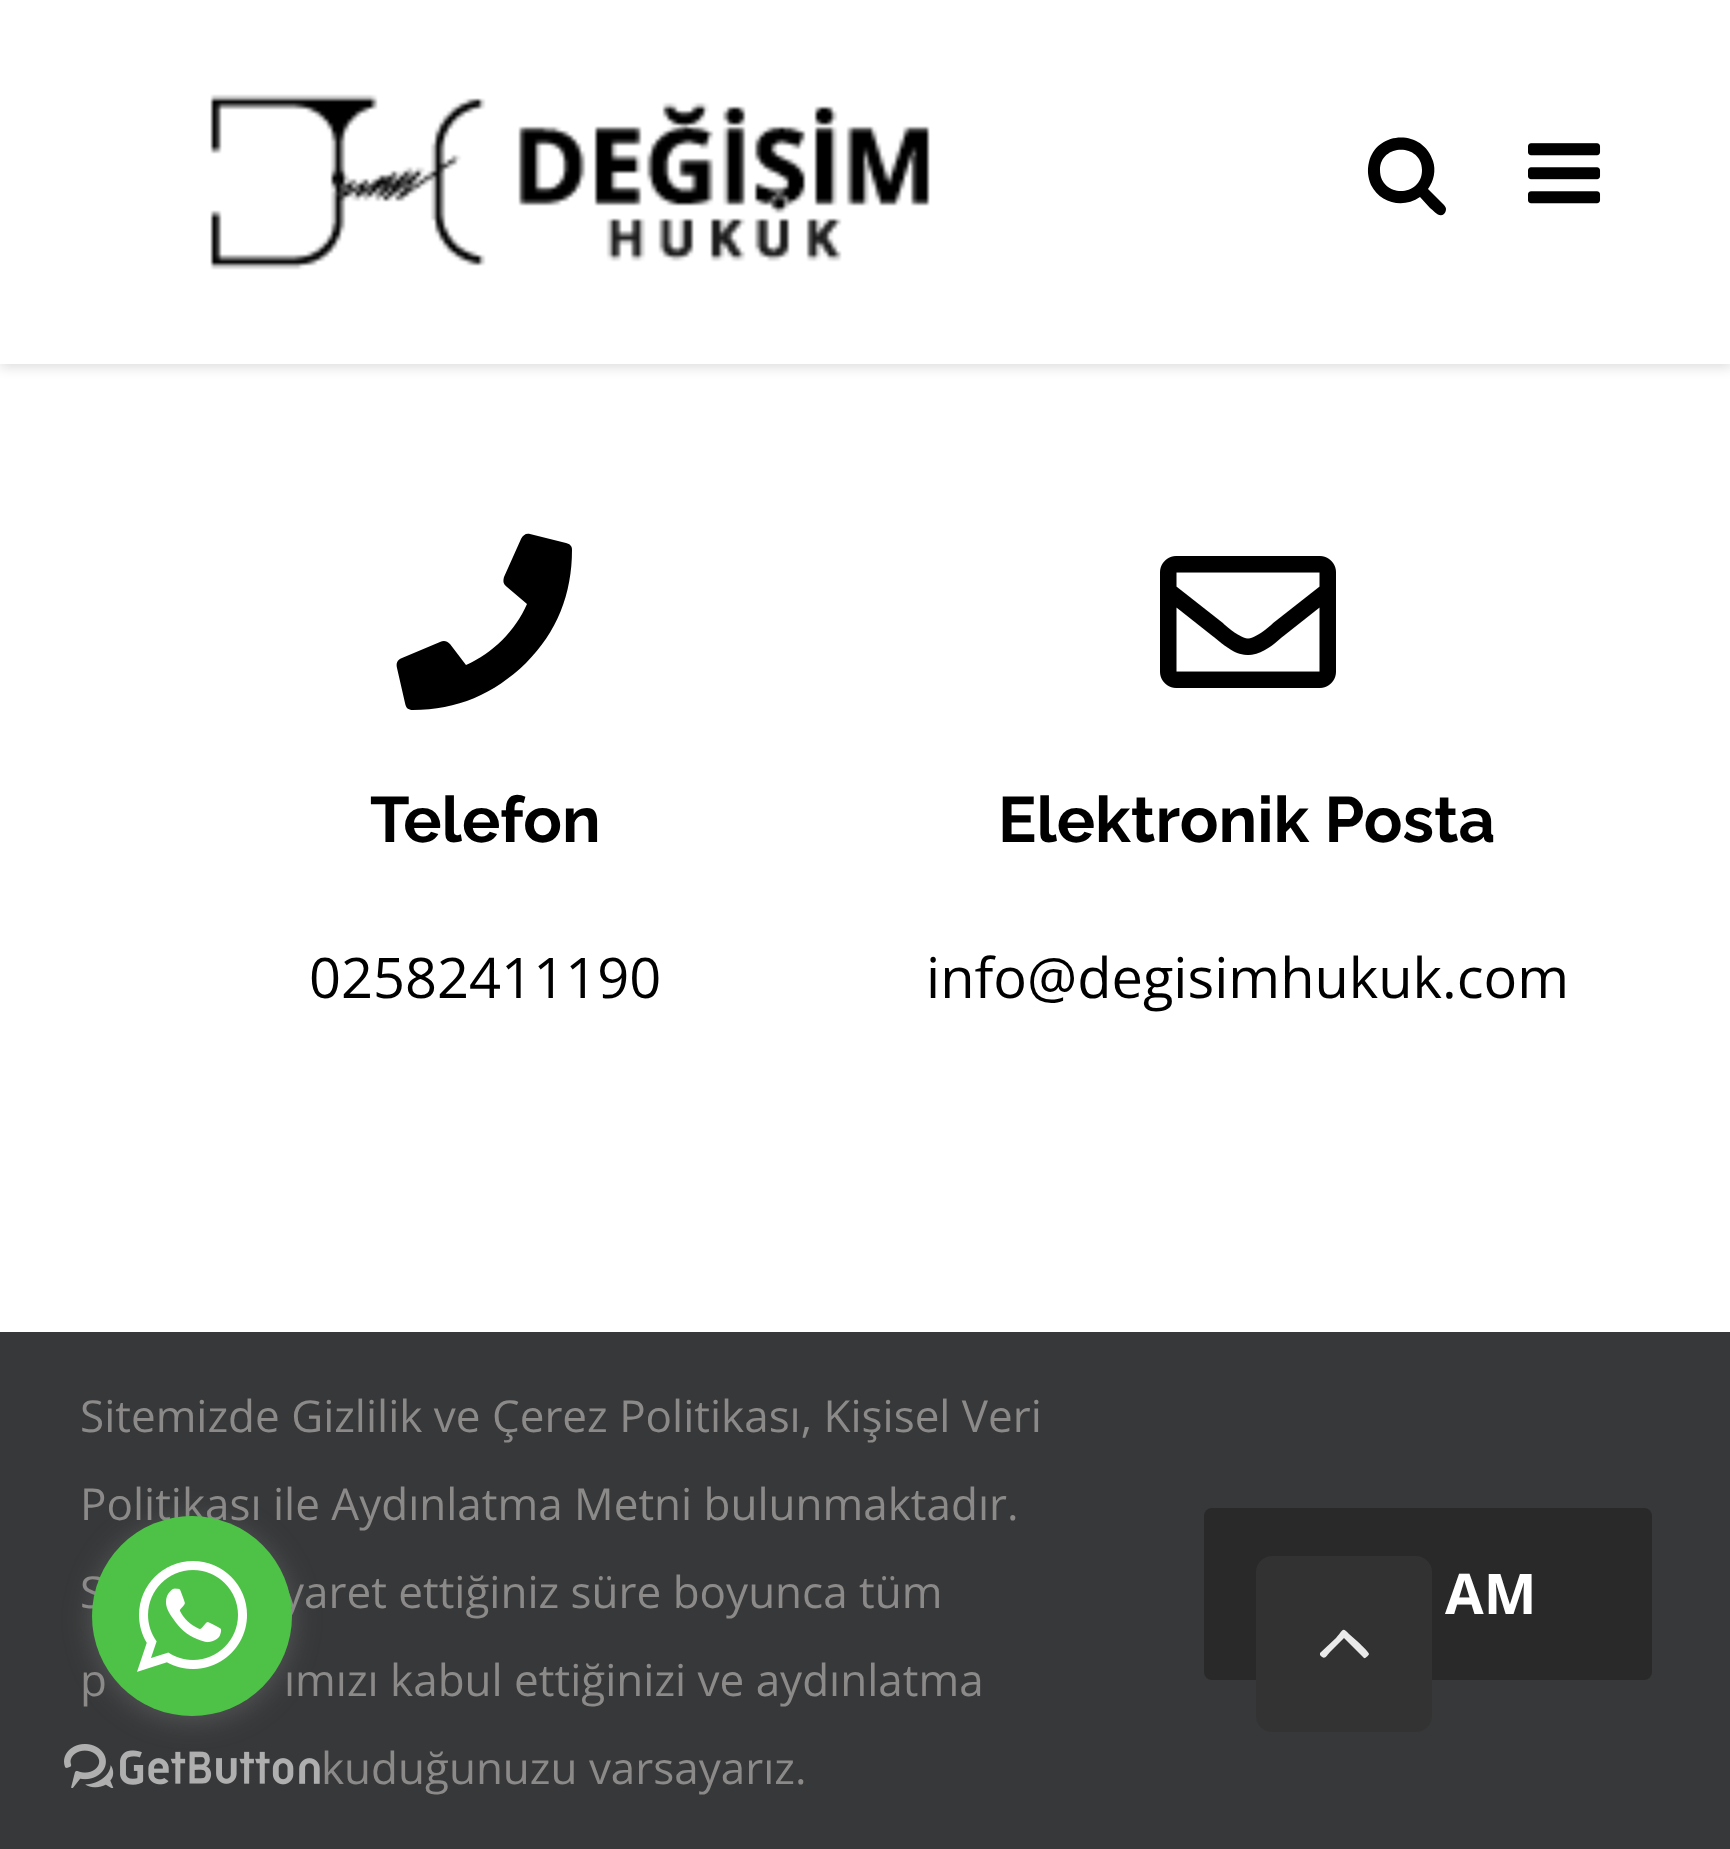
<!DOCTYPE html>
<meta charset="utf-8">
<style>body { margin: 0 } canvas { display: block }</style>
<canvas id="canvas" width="1730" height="1849"></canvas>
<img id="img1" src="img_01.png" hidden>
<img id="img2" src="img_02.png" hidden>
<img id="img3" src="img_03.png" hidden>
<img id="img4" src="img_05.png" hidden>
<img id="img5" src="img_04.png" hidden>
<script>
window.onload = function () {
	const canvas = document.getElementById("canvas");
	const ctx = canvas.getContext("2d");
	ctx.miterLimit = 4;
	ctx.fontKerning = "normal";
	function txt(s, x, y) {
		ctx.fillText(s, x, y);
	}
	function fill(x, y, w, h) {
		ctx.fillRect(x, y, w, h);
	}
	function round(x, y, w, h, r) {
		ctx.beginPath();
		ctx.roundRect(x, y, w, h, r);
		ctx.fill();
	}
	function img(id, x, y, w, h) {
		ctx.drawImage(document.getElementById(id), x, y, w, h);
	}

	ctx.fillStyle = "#FFFFFF";
	fill(0, 0, 1730, 1849);
	ctx.fillStyle = "rgba(0, 0, 0, 0.12)";
	ctx.filter = "blur(6px)";
	ctx.beginPath();
	ctx.rect(0, 4, 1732, 364);
	ctx.fill();
	ctx.filter = "none";
	ctx.fillStyle = "#FFFFFF";
	fill(0, 0, 1730, 364);
	img("img1", 210, 94, 720, 176);
	ctx.fillStyle = "#000000";
	ctx.beginPath();
	ctx.moveTo(1422, 170);
	ctx.bezierCurveTo(1422, 143, 1380, 143, 1380, 170);
	ctx.bezierCurveTo(1380, 198, 1422, 198, 1422, 170);
	ctx.closePath();
	ctx.moveTo(1446, 209);
	ctx.bezierCurveTo(1446, 211, 1445, 213, 1444, 214);
	ctx.bezierCurveTo(1439, 218, 1434, 211, 1430, 208);
	ctx.lineTo(1420, 197);
	ctx.bezierCurveTo(1403, 209, 1380, 203, 1371, 185);
	ctx.bezierCurveTo(1368, 178, 1367, 170, 1369, 162);
	ctx.bezierCurveTo(1377, 130, 1423, 129, 1433, 161);
	ctx.bezierCurveTo(1436, 170, 1434, 181, 1428, 189);
	ctx.lineTo(1444, 205);
	ctx.bezierCurveTo(1445, 206, 1446, 208, 1446, 209);
	ctx.closePath();
	ctx.fill();
	img("img2", 1528, 143, 73, 61);
	ctx.beginPath();
	ctx.moveTo(566, 543);
	ctx.bezierCurveTo(570, 544, 572, 546, 572, 550);
	ctx.bezierCurveTo(572, 594, 557, 632, 526, 663);
	ctx.bezierCurveTo(494, 694, 457, 710, 413, 710);
	ctx.bezierCurveTo(408, 710, 406, 708, 405, 703);
	ctx.lineTo(397, 668);
	ctx.bezierCurveTo(396, 663, 397, 660, 402, 658);
	ctx.lineTo(440, 642);
	ctx.bezierCurveTo(444, 640, 447, 641, 450, 644);
	ctx.lineTo(466, 665);
	ctx.bezierCurveTo(493, 653, 515, 631, 527, 604);
	ctx.lineTo(507, 587);
	ctx.bezierCurveTo(503, 584, 503, 581, 504, 577);
	ctx.lineTo(521, 539);
	ctx.bezierCurveTo(523, 535, 526, 533, 530, 534);
	ctx.closePath();
	ctx.fill();
	img("img3", 1160, 556, 176, 132);
	ctx.fillStyle = "#363839";
	fill(0, 1332, 1730, 517);
	ctx.fillStyle = "#292929";
	round(1204, 1508, 448, 172, 8);
	img("img4", 64, 1744, 256, 44);
	ctx.fillStyle = "rgba(136, 136, 136, 0.4)";
	ctx.filter = "blur(14px)";
	ctx.beginPath();
	ctx.roundRect(92, 1520, 200, 200, 100);
	ctx.fill();
	ctx.filter = "none";
	ctx.fillStyle = "rgba(51, 51, 51, 0.9)";
	round(1256, 1556, 176, 176, 16);
	ctx.fillStyle = "#EAEAEA";
	ctx.beginPath();
	ctx.moveTo(1369, 1654);
	ctx.bezierCurveTo(1369, 1655, 1365, 1659, 1364, 1658);
	ctx.lineTo(1344, 1638);
	ctx.lineTo(1331, 1651);
	ctx.bezierCurveTo(1326, 1656, 1325, 1661, 1320, 1655);
	ctx.lineTo(1320, 1653);
	ctx.lineTo(1336, 1638);
	ctx.bezierCurveTo(1344, 1629, 1342, 1627, 1349, 1634);
	ctx.lineTo(1357, 1641);
	ctx.bezierCurveTo(1359, 1643, 1369, 1652, 1369, 1654);
	ctx.closePath();
	ctx.fill();
	ctx.font = "100 64px Raleway";
	ctx.fillStyle = "#000000";
	txt("Telefon", 370, 842);
	ctx.font = "56px Open Sans";
	txt("02582411190", 309, 998);
	ctx.font = "100 64px Raleway";
	txt("Elektronik Posta", 998, 842);
	ctx.font = "56px Open Sans";
	txt("info@degisimhukuk.com", 926, 998);
	ctx.font = "44px Open Sans";
	ctx.fillStyle = "#8C8989";
	txt("Sitemizde Gizlilik ve Çerez Politikası, Kişisel Veri", 80, 1432);
	txt("Politikası ile Aydınlatma Metni bulunmaktadır.", 80, 1520);
	txt("S", 80, 1608);
	txt("yaret ettiğiniz süre boyunca tüm", 282, 1608);
	txt("p", 80, 1696);
	txt("ımızı kabul ettiğinizi ve aydınlatma", 284, 1696);
	txt("kuduğunuzu varsayarız.", 321, 1784);
	ctx.font = "bold 56px Open Sans";
	ctx.fillStyle = "#FFFFFF";
	txt("AM", 1445, 1614);
	ctx.fillStyle = "#4DC247";
	ctx.beginPath();
	ctx.arc(192, 1616, 100, 0, Math.PI * 2);
	ctx.fill();
	img("img5", 137, 1561, 110, 111);
};
</script>
